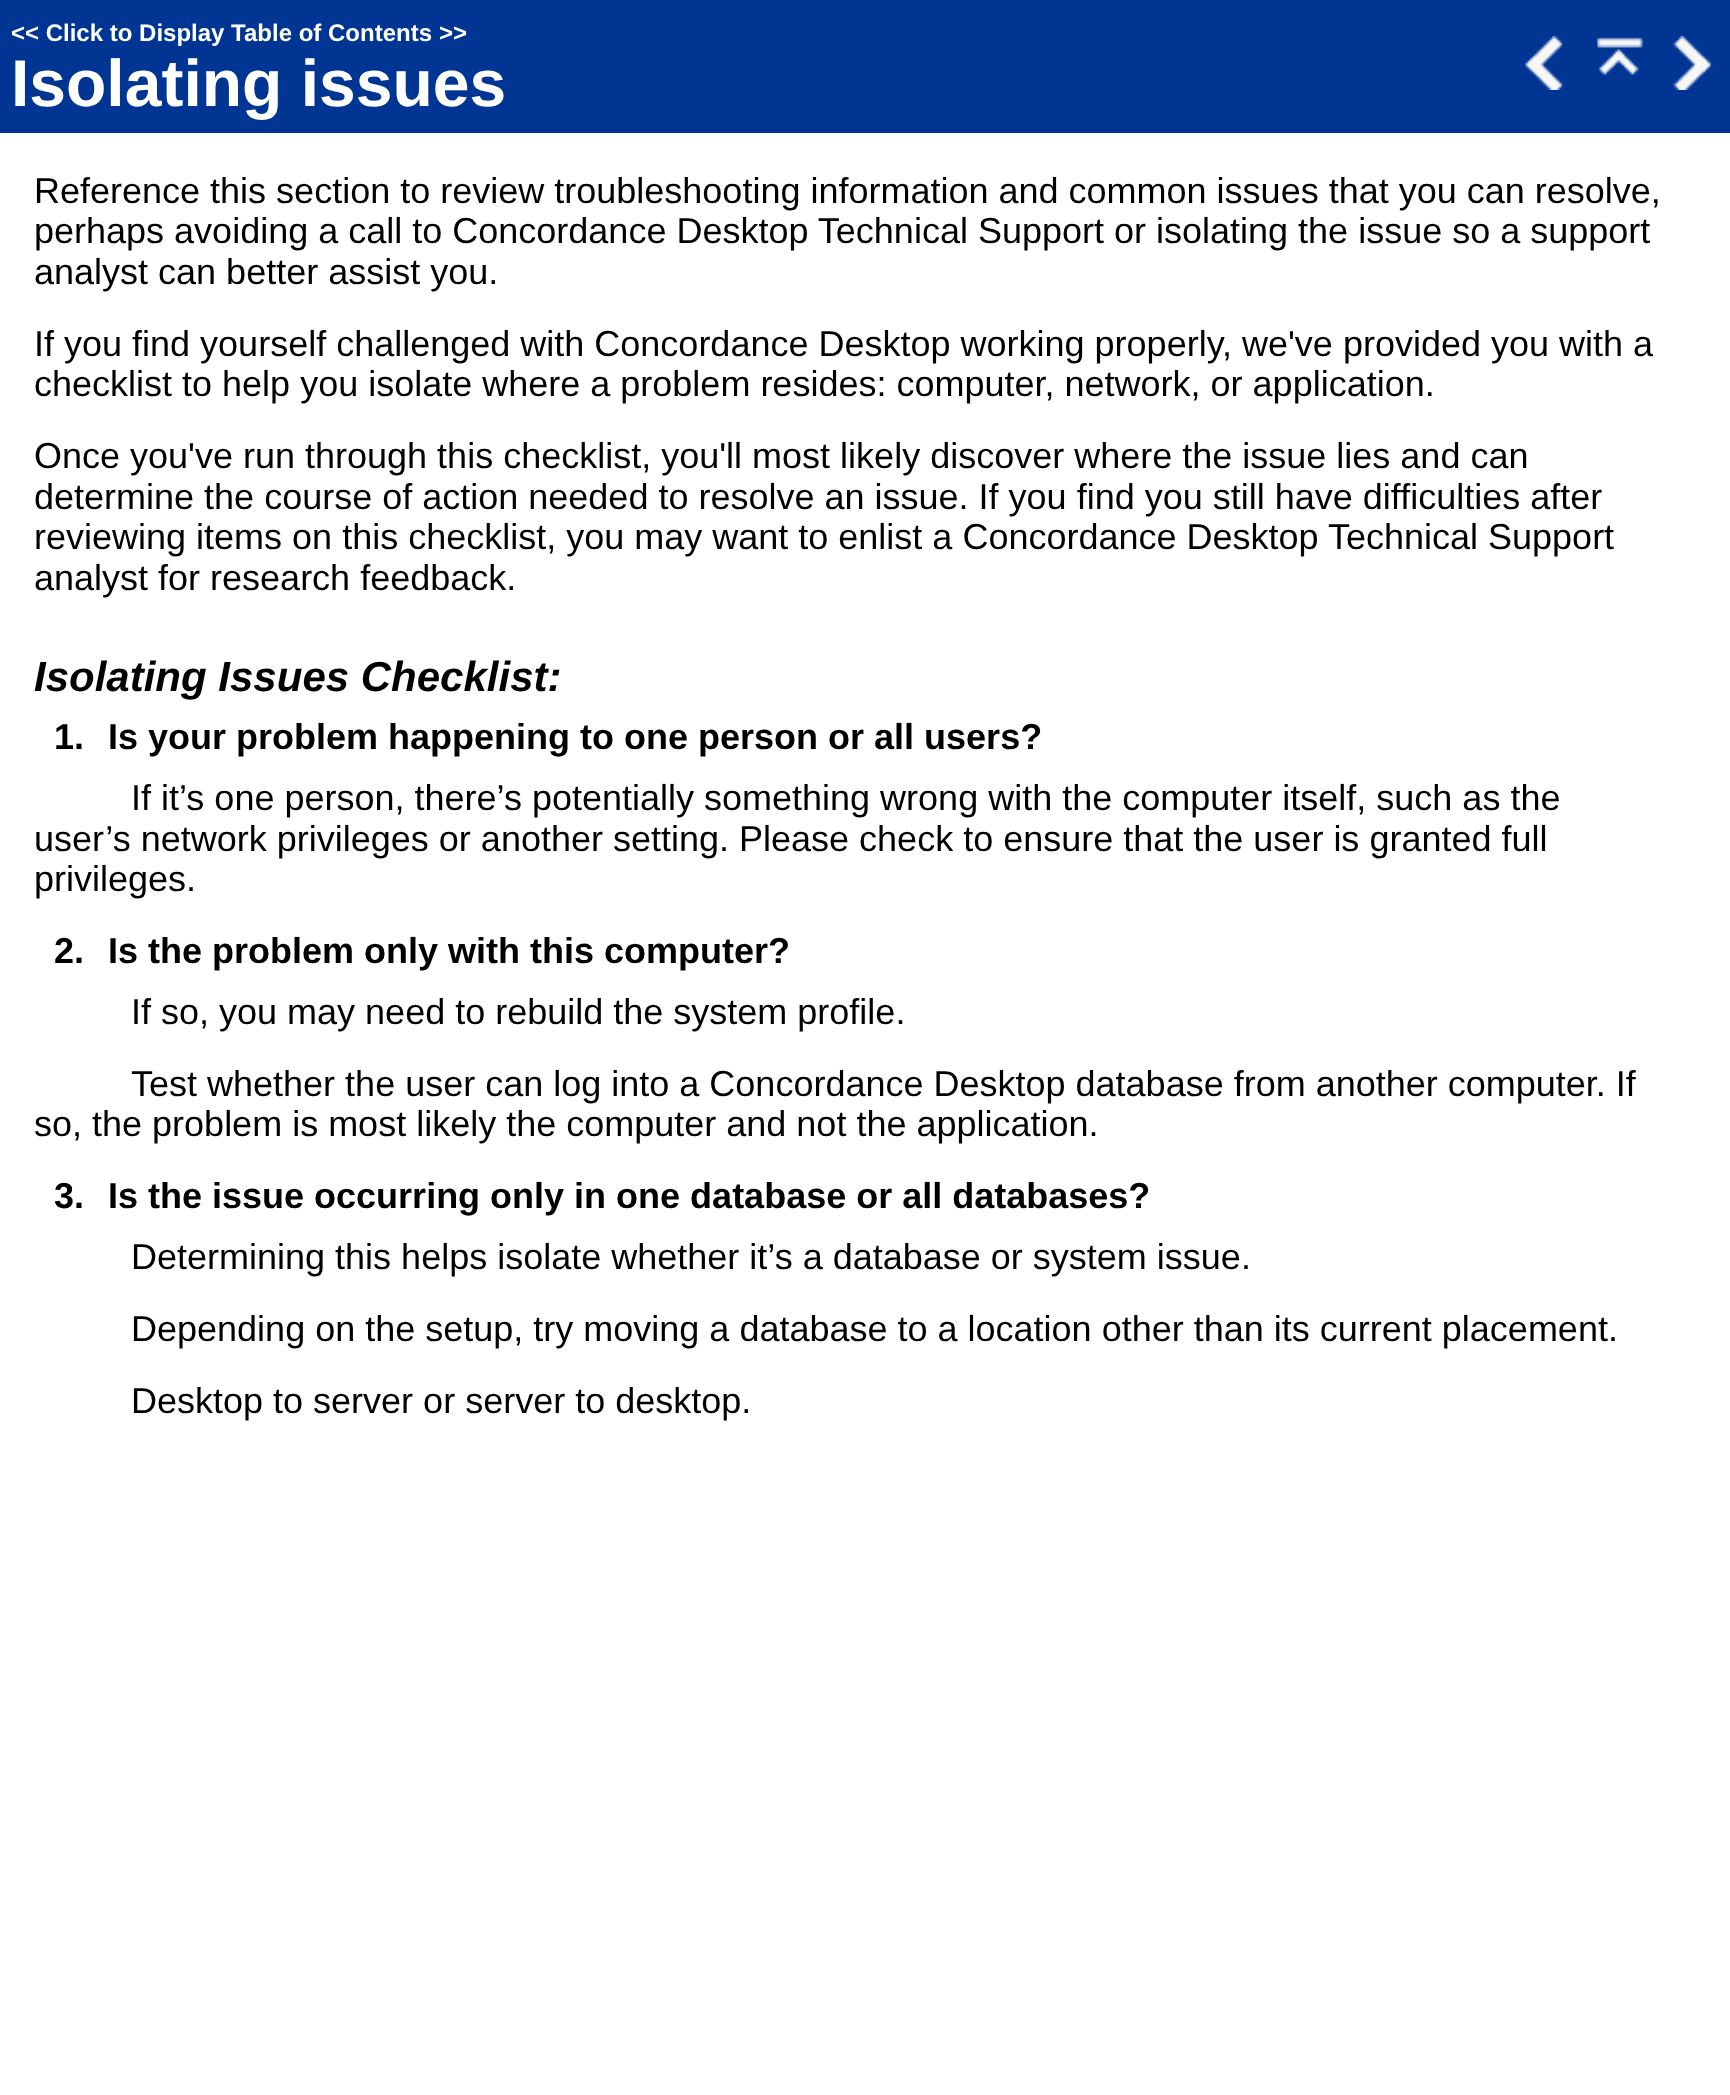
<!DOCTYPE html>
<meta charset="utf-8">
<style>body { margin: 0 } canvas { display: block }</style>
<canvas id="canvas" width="1730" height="2095"></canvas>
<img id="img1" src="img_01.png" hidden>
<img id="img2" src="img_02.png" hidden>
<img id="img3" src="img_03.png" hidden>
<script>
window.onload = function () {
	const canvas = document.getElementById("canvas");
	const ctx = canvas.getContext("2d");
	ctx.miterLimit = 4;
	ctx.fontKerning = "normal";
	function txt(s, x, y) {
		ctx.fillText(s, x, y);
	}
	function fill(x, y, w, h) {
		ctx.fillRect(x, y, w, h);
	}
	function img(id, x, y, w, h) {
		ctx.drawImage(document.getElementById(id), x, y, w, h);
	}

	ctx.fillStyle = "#FFFFFF";
	fill(0, 0, 1730, 2095);
	ctx.fillStyle = "#003594";
	fill(0, 0, 1730, 133);
	img("img1", 1525, 36, 39, 54);
	img("img2", 1597, 37, 47, 38);
	img("img3", 1673, 36, 40, 54);
	ctx.font = "bold 24px Liberation Sans";
	ctx.fillStyle = "#FFFFFF";
	txt("<< Click to Display Table of Contents", 11, 41);
	txt(">>", 439, 41);
	ctx.font = "bold 66px Liberation Sans";
	txt("Isolating issues", 11, 106);
	ctx.font = "36px Liberation Sans";
	ctx.fillStyle = "#000000";
	txt("Reference this section to review troubleshooting information and common issues that you can resolve,", 34, 203);
	txt("perhaps avoiding a call to Concordance Desktop Technical Support or isolating the issue so a support", 34, 243);
	txt("analyst can better assist you.", 34, 284);
	txt("If you find yourself challenged with Concordance Desktop working properly, we've provided you with a", 34, 356);
	txt("checklist to help you isolate where a problem resides: computer, network, or application.", 34, 396);
	txt("Once you've run through this checklist, you'll most likely discover where the issue lies and can", 34, 468);
	txt("determine the course of action needed to resolve an issue. If you find you still have difficulties after", 34, 509);
	txt("reviewing items on this checklist, you may want to enlist a Concordance Desktop Technical Support", 34, 549);
	txt("analyst for research feedback.", 34, 590);
	ctx.font = "italic bold 42px Liberation Sans";
	txt("Isolating Issues Checklist:", 34, 691);
	ctx.font = "bold 36px Liberation Sans";
	txt("1.", 54, 749);
	txt("Is your problem happening to one person or all users?", 108, 749);
	ctx.font = "36px Liberation Sans";
	txt("If it’s one person, there’s potentially something wrong with the computer itself, such as the", 131, 810);
	txt("user’s network privileges or another setting. Please check to ensure that the user is granted full", 34, 851);
	txt("privileges.", 34, 891);
	ctx.font = "bold 36px Liberation Sans";
	txt("2.", 54, 963);
	txt("Is the problem only with this computer?", 108, 963);
	ctx.font = "36px Liberation Sans";
	txt("If so, you may need to rebuild the system profile.", 131, 1024);
	txt("Test whether the user can log into a Concordance Desktop database from another computer. If", 131, 1096);
	txt("so, the problem is most likely the computer and not the application.", 34, 1136);
	ctx.font = "bold 36px Liberation Sans";
	txt("3.", 54, 1208);
	txt("Is the issue occurring only in one database or all databases?", 108, 1208);
	ctx.font = "36px Liberation Sans";
	txt("Determining this helps isolate whether it’s a database or system issue.", 131, 1269);
	txt("Depending on the setup, try moving a database to a location other than its current placement.", 131, 1341);
	txt("Desktop to server or server to desktop.", 131, 1413);
};
</script>
